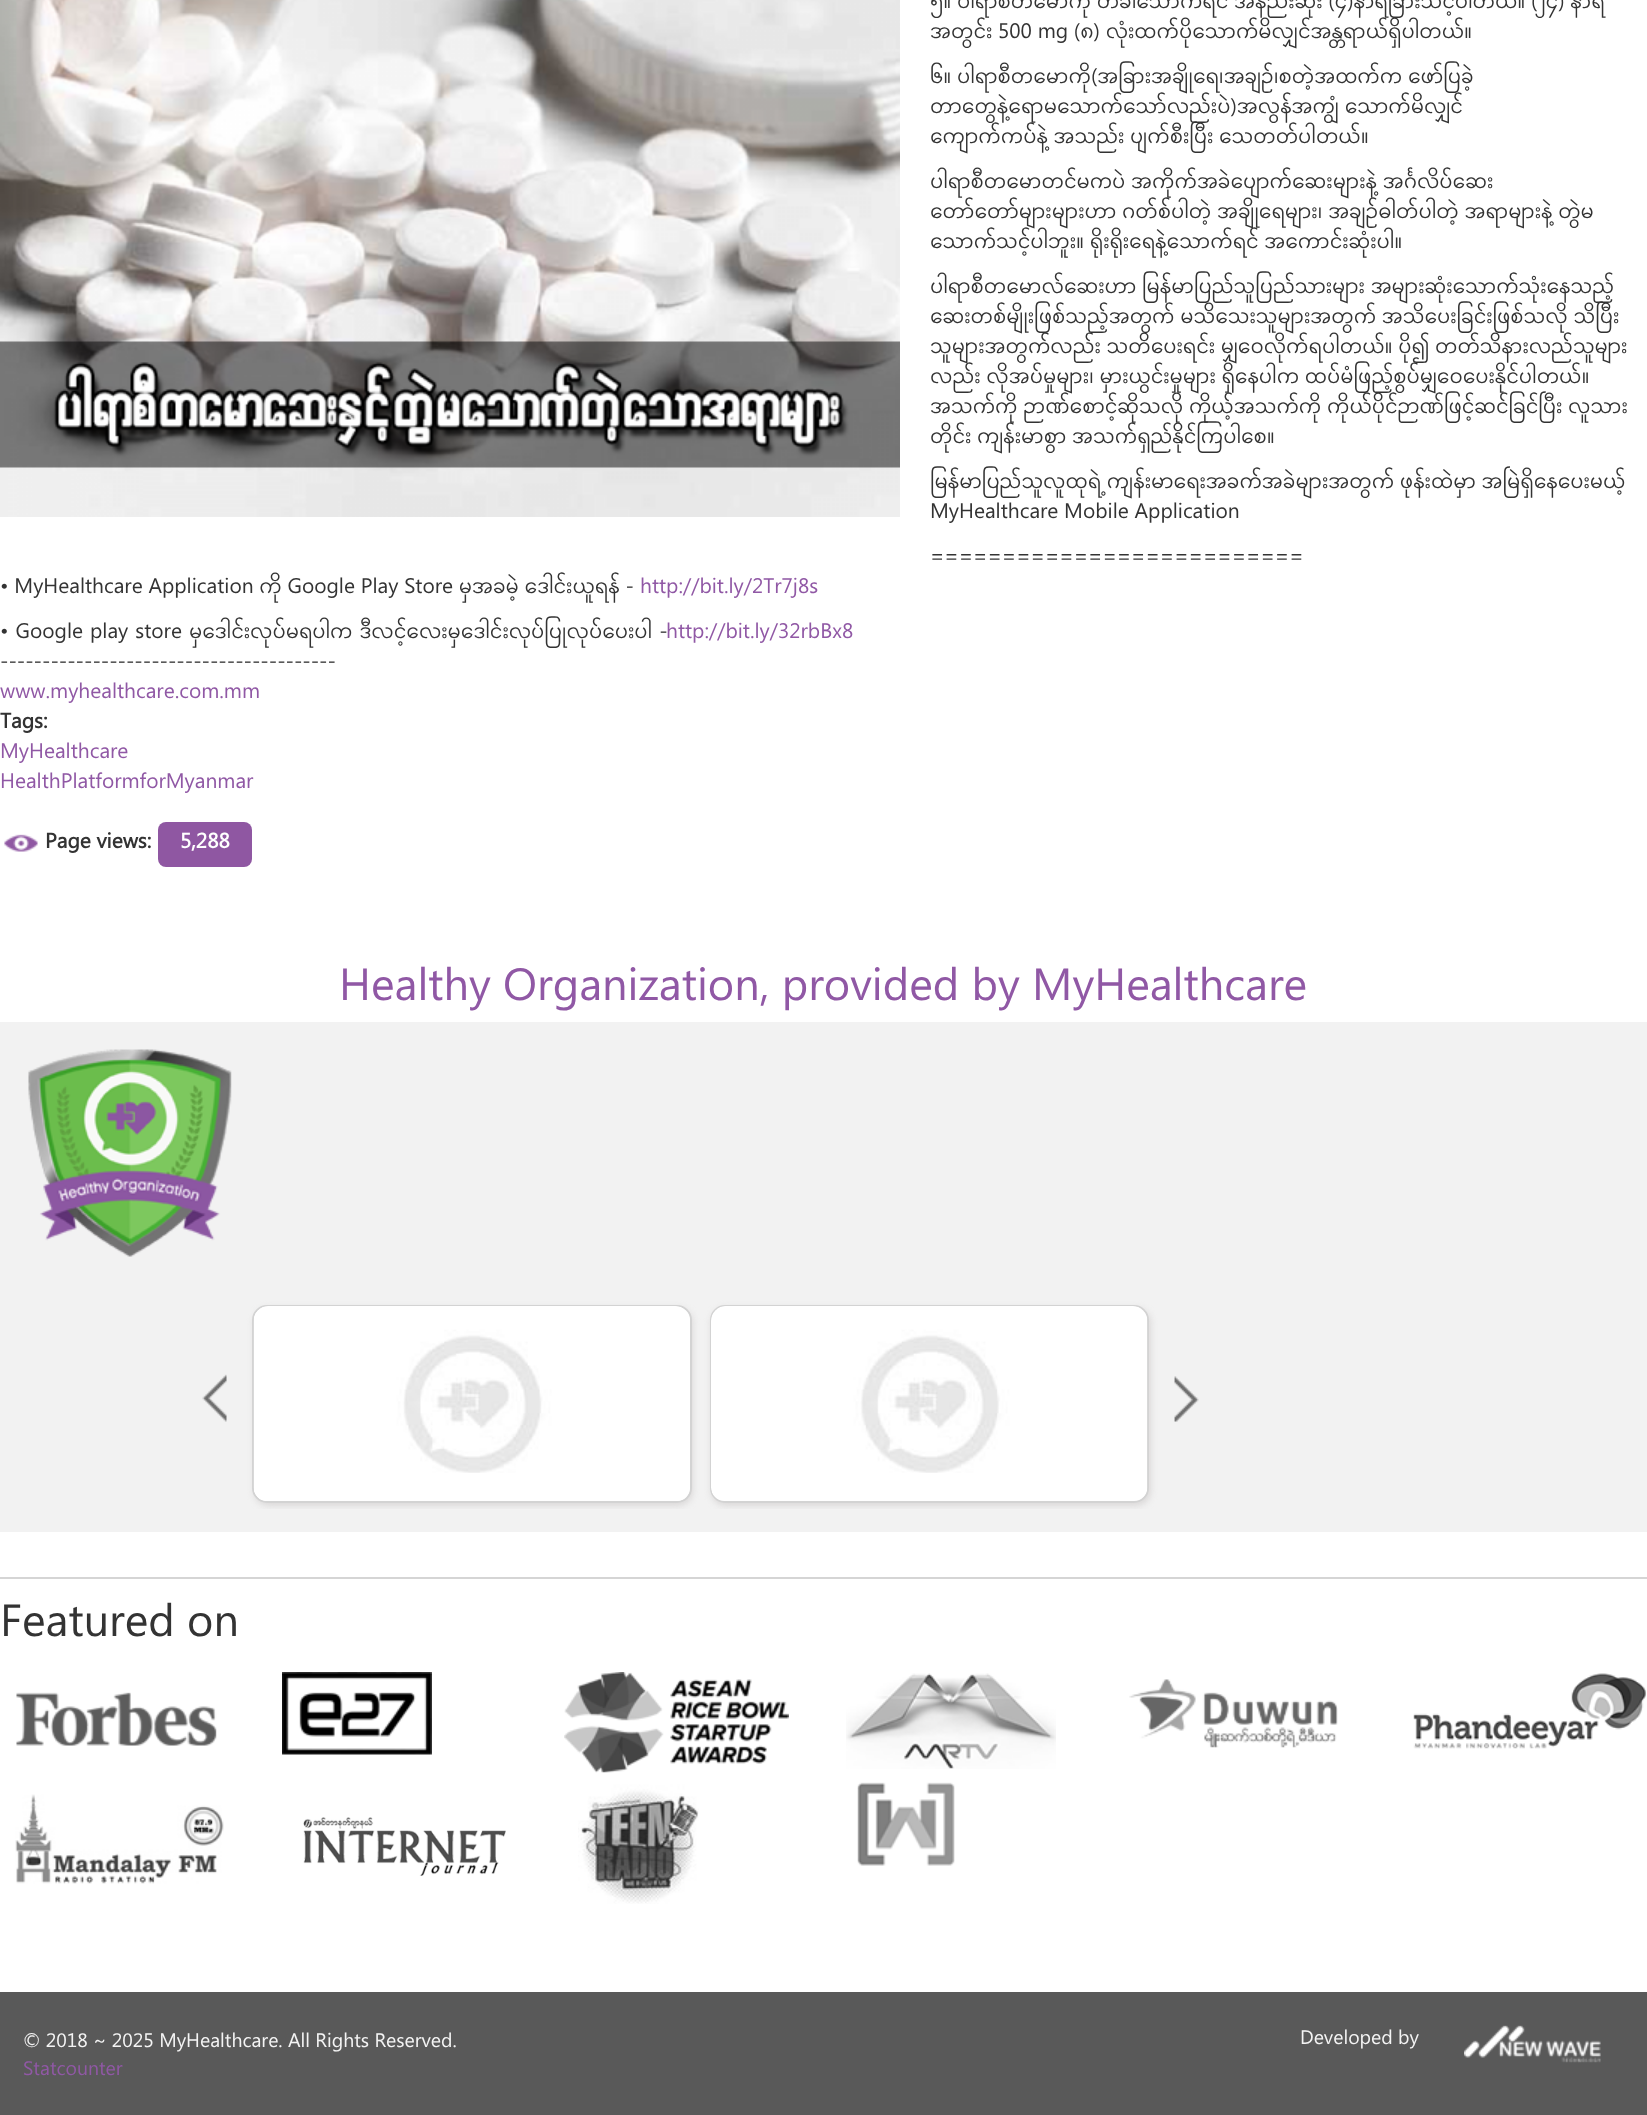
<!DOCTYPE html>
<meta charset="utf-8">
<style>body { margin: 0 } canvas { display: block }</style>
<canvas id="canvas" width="1647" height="2115"></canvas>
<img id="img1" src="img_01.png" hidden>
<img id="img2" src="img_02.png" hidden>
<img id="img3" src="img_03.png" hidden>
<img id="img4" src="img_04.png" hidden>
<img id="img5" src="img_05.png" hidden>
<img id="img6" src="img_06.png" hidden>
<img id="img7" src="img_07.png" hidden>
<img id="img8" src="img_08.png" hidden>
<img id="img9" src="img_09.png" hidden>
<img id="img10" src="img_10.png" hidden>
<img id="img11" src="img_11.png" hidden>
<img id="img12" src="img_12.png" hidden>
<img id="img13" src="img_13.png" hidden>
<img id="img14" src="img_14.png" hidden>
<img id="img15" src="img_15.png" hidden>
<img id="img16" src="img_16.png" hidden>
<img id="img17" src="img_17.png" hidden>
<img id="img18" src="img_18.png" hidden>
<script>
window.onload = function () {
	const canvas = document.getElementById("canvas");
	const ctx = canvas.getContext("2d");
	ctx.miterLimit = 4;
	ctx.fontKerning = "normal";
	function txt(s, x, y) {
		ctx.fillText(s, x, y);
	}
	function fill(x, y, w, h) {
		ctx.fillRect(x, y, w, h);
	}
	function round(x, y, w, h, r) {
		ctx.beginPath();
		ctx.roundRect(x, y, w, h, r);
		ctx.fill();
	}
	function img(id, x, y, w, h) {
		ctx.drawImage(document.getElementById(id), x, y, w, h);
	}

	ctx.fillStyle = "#FFFFFF";
	fill(0, 0, 1647, 2115);
	img("img1", 0, 0, 900, 517);
	img("img2", 4, 834, 34, 18);
	ctx.fillStyle = "#8F57A2";
	round(158, 822, 94, 45, 8);
	ctx.fillStyle = "#F2F2F2";
	fill(0, 1022, 1647, 510);
	img("img3", 28, 1049, 204, 208);
	img("img4", 202, 1374, 25, 48);
	ctx.save();
	ctx.beginPath();
	ctx.rect(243, 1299, 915, 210);
	ctx.clip();
	ctx.fillStyle = "#DBD9D9";
	ctx.filter = "blur(3px)";
	ctx.beginPath();
	ctx.roundRect(254, 1308, 439, 198, 15);
	ctx.fill();
	ctx.filter = "none";
	ctx.restore();
	ctx.fillStyle = "#FFFFFF";
	ctx.beginPath();
	ctx.roundRect(253, 1306, 438, 196, 14);
	ctx.fill();
	ctx.strokeStyle = "#D3D3D3";
	ctx.lineWidth = 2;
	ctx.stroke();
	img("img5", 253, 1306, 437, 195);
	ctx.save();
	ctx.beginPath();
	ctx.rect(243, 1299, 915, 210);
	ctx.clip();
	ctx.fillStyle = "#DBD9D9";
	ctx.filter = "blur(3px)";
	ctx.beginPath();
	ctx.roundRect(711, 1308, 440, 198, 15);
	ctx.fill();
	ctx.filter = "none";
	ctx.restore();
	ctx.beginPath();
	ctx.roundRect(711, 1306, 437, 196, 14);
	ctx.stroke();
	img("img6", 711, 1306, 437, 195);
	img("img7", 1174, 1376, 25, 46);
	ctx.fillStyle = "#D5D5D5";
	fill(0, 1577, 1647, 2);
	img("img8", 16, 1692, 201, 54);
	img("img9", 282, 1672, 150, 83);
	img("img10", 564, 1672, 225, 101);
	img("img11", 846, 1673, 210, 96);
	img("img12", 1129, 1679, 209, 69);
	img("img13", 1413, 1673, 233, 76);
	img("img14", 15, 1794, 209, 90);
	img("img15", 303, 1817, 203, 59);
	img("img16", 578, 1772, 121, 132);
	img("img17", 857, 1782, 98, 84);
	ctx.fillStyle = "#595959";
	fill(0, 1992, 1647, 123);
	img("img18", 1464, 2025, 137, 38);
	ctx.font = "21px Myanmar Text";
	ctx.fillStyle = "#333333";
	txt("၅။ ပါရာစီတမောကို တခါသောက်ရင် အနည်းဆုံး (၄)နာရီခြားသင့်ပါတယ်။ (၂၄) နာရီ", 930, 8);
	txt("အတွင်း 500 mg (၈) လုံးထက်ပိုသောက်မိလျှင်အန္တရာယ်ရှိပါတယ်။", 930, 38);
	txt("၆။ ပါရာစီတမောကို(အခြားအချိုရေ၊အချဉ်၊စတဲ့အထက်က ဖော်ပြခဲ့", 930, 83);
	txt("တာတွေနဲ့ရောမသောက်သော်လည်းပဲ)အလွန်အကျွံ သောက်မိလျှင်", 930, 113);
	txt("ကျောက်ကပ်နဲ့ အသည်း ပျက်စီးပြီး သေတတ်ပါတယ်။", 930, 143);
	txt("ပါရာစီတမောတင်မကပဲ အကိုက်အခဲပျောက်ဆေးများနဲ့ အင်္ဂလိပ်ဆေး", 930, 188);
	txt("တော်တော်များများဟာ ဂတ်စ်ပါတဲ့ အချိုရေများ၊ အချဉ်ဓါတ်ပါတဲ့ အရာများနဲ့ တွဲမ", 930, 218);
	txt("သောက်သင့်ပါဘူး။ ရိုးရိုးရေနဲ့သောက်ရင် အကောင်းဆုံးပါ။", 930, 248);
	txt("ပါရာစီတမောလ်ဆေးဟာ မြန်မာပြည်သူပြည်သားများ အများဆုံးသောက်သုံးနေသည့်", 930, 293);
	txt("ဆေးတစ်မျိုးဖြစ်သည့်အတွက် မသိသေးသူများအတွက် အသိပေးခြင်းဖြစ်သလို သိပြီး", 930, 323);
	txt("သူများအတွက်လည်း သတိပေးရင်း မျှဝေလိုက်ရပါတယ်။ ပို၍ တတ်သိနားလည်သူများ", 930, 353);
	txt("လည်း လိုအပ်မှုများ၊ မှားယွင်းမှုများ ရှိနေပါက ထပ်မံဖြည့်စွပ်မျှဝေပေးနိုင်ပါတယ်။", 930, 383);
	txt("အသက်ကို ဉာဏ်စောင့်ဆိုသလို ကိုယ့်အသက်ကို ကိုယ်ပိုင်ဉာဏ်ဖြင့်ဆင်ခြင်ပြီး လူသား", 930, 413);
	txt("တိုင်း ကျန်းမာစွာ အသက်ရှည်နိုင်ကြပါစေ။", 930, 443);
	txt("မြန်မာပြည်သူလူထုရဲ့ ကျန်းမာရေးအခက်အခဲများအတွက် ဖုန်းထဲမှာ အမြဲရှိနေပေးမယ့်", 930, 488);
	txt("MyHealthcare Mobile Application", 930, 518);
	txt("==========================", 930, 563);
	txt("• MyHealthcare Application ကို Google Play Store မှအခမဲ့ ဒေါင်းယူရန် -", 0, 593);
	ctx.fillStyle = "#9058A5";
	txt("http://bit.ly/2Tr7j8s", 640, 593);
	ctx.wordSpacing = "1.25px";
	ctx.fillStyle = "#333333";
	txt("• Google play store မှဒေါင်းလုပ်မရပါက ဒီလင့်လေးမှဒေါင်းလုပ်ပြုလုပ်ပေးပါ -", 0, 638);
	ctx.wordSpacing = "0px";
	ctx.fillStyle = "#9058A5";
	txt("http://bit.ly/32rbBx8", 666, 638);
	ctx.fillStyle = "#333333";
	txt("----------------------------------------", 0, 668);
	ctx.fillStyle = "#9058A5";
	txt("www.myhealthcare.com.mm", 0, 698);
	ctx.font = "bold 21px Myanmar Text";
	ctx.fillStyle = "#333333";
	txt("Tags:", 0, 728);
	ctx.font = "21px Myanmar Text";
	ctx.fillStyle = "#9058A5";
	txt("MyHealthcare", 0, 758);
	txt("HealthPlatformforMyanmar", 0, 788);
	ctx.font = "bold 21px Myanmar Text";
	ctx.fillStyle = "#333333";
	txt("Page views:", 45, 848);
	ctx.fillStyle = "#FFFFFF";
	txt("5,288", 180, 848);
	ctx.font = "45px Myanmar Text";
	ctx.fillStyle = "#9058A5";
	txt("Healthy Organization, provided by MyHealthcare", 339, 1000);
	ctx.fillStyle = "#333333";
	txt("Featured on", 0, 1636);
	ctx.font = "19.5px Myanmar Text";
	ctx.fillStyle = "#F4F4F4";
	txt("© 2018 ~ 2025 MyHealthcare. All Rights Reserved.", 23, 2047);
	ctx.fillStyle = "#9058A5";
	txt("Statcounter", 23, 2075);
	ctx.fillStyle = "#F4F4F4";
	txt("Developed by", 1300, 2044);
};
</script>
